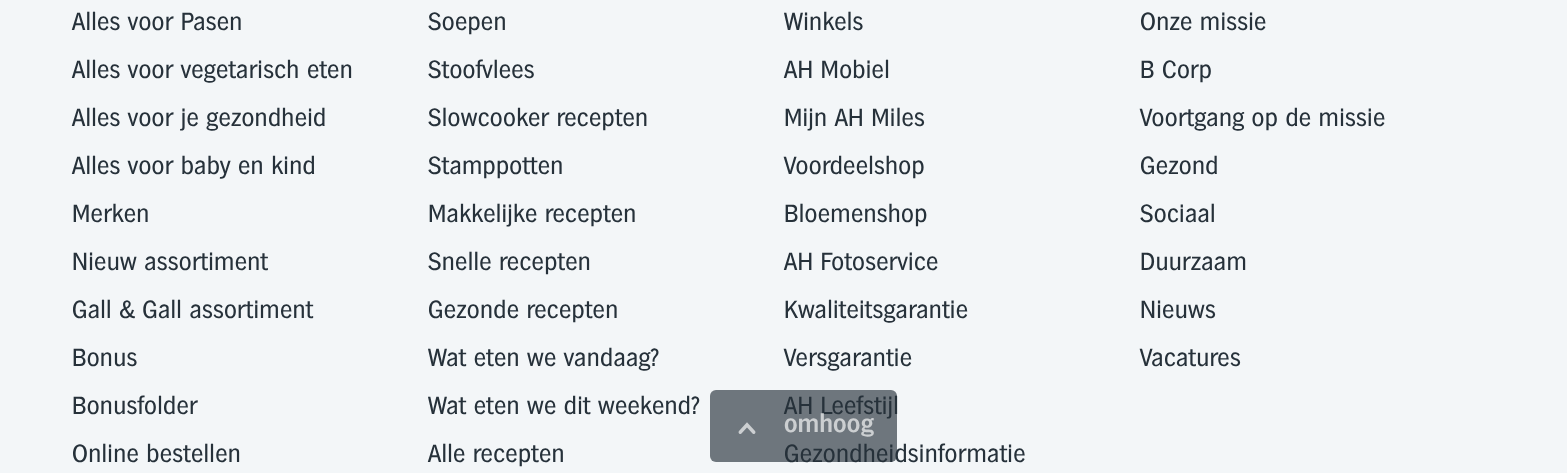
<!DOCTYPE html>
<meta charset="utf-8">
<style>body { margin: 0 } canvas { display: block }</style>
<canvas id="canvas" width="1567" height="473"></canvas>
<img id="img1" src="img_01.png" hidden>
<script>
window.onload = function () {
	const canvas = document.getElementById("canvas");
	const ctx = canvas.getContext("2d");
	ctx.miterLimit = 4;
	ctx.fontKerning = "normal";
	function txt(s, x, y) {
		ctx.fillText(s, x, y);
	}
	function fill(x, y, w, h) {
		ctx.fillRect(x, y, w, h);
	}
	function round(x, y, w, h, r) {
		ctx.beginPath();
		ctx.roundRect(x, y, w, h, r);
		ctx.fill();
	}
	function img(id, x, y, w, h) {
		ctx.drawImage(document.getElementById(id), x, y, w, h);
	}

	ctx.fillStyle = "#F3F6F8";
	fill(0, 0, 1567, 473);
	ctx.letterSpacing = "0.3px";
	ctx.font = "24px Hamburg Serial";
	ctx.fillStyle = "#26313A";
	txt("Alles voor Pasen", 72, 30);
	txt("Alles voor vegetarisch eten", 72, 78);
	txt("Alles voor je gezondheid", 72, 126);
	txt("Alles voor baby en kind", 72, 174);
	txt("Merken", 72, 222);
	txt("Nieuw assortiment", 72, 270);
	txt("Gall & Gall assortiment", 72, 318);
	txt("Bonus", 72, 366);
	txt("Bonusfolder", 72, 414);
	txt("Online bestellen", 72, 462);
	txt("Soepen", 428, 30);
	txt("Stoofvlees", 428, 78);
	txt("Slowcooker recepten", 428, 126);
	txt("Stamppotten", 428, 174);
	txt("Makkelijke recepten", 428, 222);
	txt("Snelle recepten", 428, 270);
	txt("Gezonde recepten", 428, 318);
	txt("Wat eten we vandaag?", 428, 366);
	txt("Wat eten we dit weekend?", 428, 414);
	txt("Alle recepten", 428, 462);
	txt("Winkels", 784, 30);
	txt("AH Mobiel", 784, 78);
	txt("Mijn AH Miles", 784, 126);
	txt("Voordeelshop", 784, 174);
	txt("Bloemenshop", 784, 222);
	txt("AH Fotoservice", 784, 270);
	txt("Kwaliteitsgarantie", 784, 318);
	txt("Versgarantie", 784, 366);
	txt("AH Leefstijl", 784, 414);
	txt("Gezondheidsinformatie", 784, 462);
	txt("Onze missie", 1140, 30);
	txt("B Corp", 1140, 78);
	txt("Voortgang op de missie", 1140, 126);
	txt("Gezond", 1140, 174);
	txt("Sociaal", 1140, 222);
	txt("Duurzaam", 1140, 270);
	txt("Nieuws", 1140, 318);
	txt("Vacatures", 1140, 366);
	ctx.fillStyle = "rgba(38, 49, 58, 0.65)";
	round(710, 390, 187, 72, 6);
	img("img1", 738, 422, 18, 12);
	ctx.font = "bold 24px Hamburg Serial";
	ctx.fillStyle = "#CCCFD1";
	txt("omhoog", 784, 432);
};
</script>
